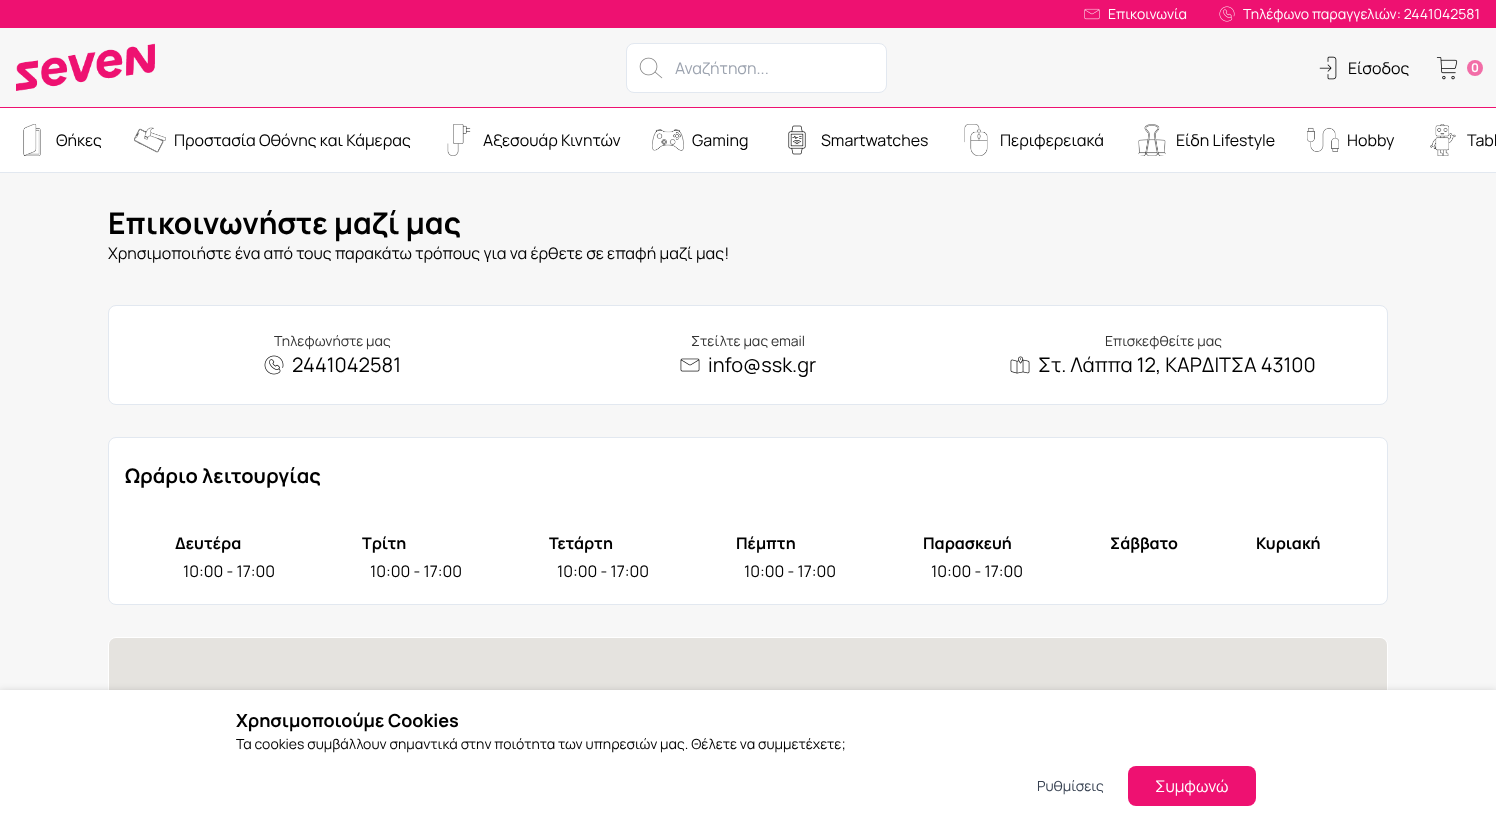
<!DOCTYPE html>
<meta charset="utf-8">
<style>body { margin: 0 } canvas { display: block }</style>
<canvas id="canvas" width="1496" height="818"></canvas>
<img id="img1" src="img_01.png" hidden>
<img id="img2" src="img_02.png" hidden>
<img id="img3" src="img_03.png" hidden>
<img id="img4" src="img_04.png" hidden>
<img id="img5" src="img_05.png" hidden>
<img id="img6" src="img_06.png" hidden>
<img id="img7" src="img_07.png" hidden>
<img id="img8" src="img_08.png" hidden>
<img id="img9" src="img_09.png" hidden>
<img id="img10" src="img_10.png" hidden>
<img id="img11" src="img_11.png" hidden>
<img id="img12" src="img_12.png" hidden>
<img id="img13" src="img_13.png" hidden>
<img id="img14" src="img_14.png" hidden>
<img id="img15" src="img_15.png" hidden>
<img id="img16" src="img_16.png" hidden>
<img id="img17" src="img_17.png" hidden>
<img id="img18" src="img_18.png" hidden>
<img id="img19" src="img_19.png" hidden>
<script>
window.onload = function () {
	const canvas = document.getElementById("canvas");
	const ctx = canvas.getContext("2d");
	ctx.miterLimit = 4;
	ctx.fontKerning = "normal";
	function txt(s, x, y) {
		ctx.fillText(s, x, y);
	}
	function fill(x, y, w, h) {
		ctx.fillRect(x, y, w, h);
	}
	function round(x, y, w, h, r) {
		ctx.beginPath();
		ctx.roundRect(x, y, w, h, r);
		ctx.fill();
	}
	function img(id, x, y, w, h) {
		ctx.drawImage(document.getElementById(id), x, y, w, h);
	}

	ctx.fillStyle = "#F7F7F7";
	fill(0, 0, 1496, 818);
	ctx.fillStyle = "#EE1171";
	fill(0, 0, 1496, 28);
	img("img1", 1084, 8, 16, 12);
	img("img2", 1219, 6, 16, 16);
	fill(0, 107, 1496, 1);
	img("img3", 16, 43, 139, 48);
	ctx.fillStyle = "#FFFFFF";
	ctx.beginPath();
	ctx.roundRect(626.5, 43.5, 260, 49, 7.5);
	ctx.fill();
	ctx.strokeStyle = "#E2E8F0";
	ctx.stroke();
	img("img4", 639, 57, 24, 22);
	img("img5", 1319, 56, 18, 24);
	img("img6", 1436, 57, 22, 23);
	ctx.fillStyle = "#F26DA7";
	ctx.beginPath();
	ctx.arc(1475, 68, 8, 0, Math.PI * 2);
	ctx.fill();
	ctx.fillStyle = "#FFFFFF";
	fill(0, 108, 1496, 64);
	ctx.fillStyle = "#E2E8F0";
	fill(0, 172, 1496, 1);
	img("img7", 23, 124, 18, 32);
	img("img8", 134, 127, 32, 26);
	img("img9", 447, 124, 24, 32);
	img("img10", 652, 129, 32, 22);
	img("img11", 788, 125, 18, 30);
	img("img12", 964, 124, 24, 32);
	img("img13", 1138, 124, 28, 32);
	img("img14", 1307, 127, 32, 25);
	img("img15", 1430, 124, 26, 32);
	ctx.fillStyle = "#FFFFFF";
	ctx.beginPath();
	ctx.roundRect(108.5, 305.5, 1279, 99, 7.5);
	ctx.fill();
	ctx.stroke();
	img("img16", 264, 355, 20, 20);
	img("img17", 680, 358, 20, 14);
	img("img18", 1010, 356, 20, 18);
	ctx.beginPath();
	ctx.roundRect(108.5, 437.5, 1279, 167, 7.5);
	ctx.fill();
	ctx.stroke();
	ctx.beginPath();
	ctx.roundRect(108.5, 637.5, 1279, 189, 7.5);
	ctx.strokeStyle = "#FFFFFF";
	ctx.stroke();
	img("img19", 109, 638, 1278, 52);
	ctx.fillStyle = "rgba(0, 0, 0, 0.27)";
	ctx.filter = "blur(5px)";
	ctx.beginPath();
	ctx.rect(-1, 693, 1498, 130);
	ctx.fill();
	ctx.filter = "none";
	ctx.fillStyle = "#FFFFFF";
	fill(0, 690, 1496, 128);
	ctx.fillStyle = "#EE1171";
	round(1128, 766, 128, 40, 8);
	ctx.font = "14px Manrope";
	ctx.fillStyle = "#FFFFFF";
	txt("Επικοινωνία", 1108, 19);
	txt("Τηλέφωνο παραγγελιών: 2441042581", 1243, 19);
	ctx.font = "16px Manrope";
	ctx.fillStyle = "#9CA3AF";
	txt("Αναζήτηση...", 675, 74);
	ctx.fillStyle = "#000000";
	txt("Είσοδος", 1348, 74);
	ctx.font = "bold 12px Manrope";
	ctx.fillStyle = "#FFFFFF";
	txt("0", 1471, 72);
	ctx.font = "16px Manrope";
	ctx.fillStyle = "#000000";
	txt("Θήκες", 56, 146);
	txt("Προστασία Οθόνης και Κάμερας", 174, 146);
	txt("Αξεσουάρ Κινητών", 483, 146);
	txt("Gaming", 692, 146);
	txt("Smartwatches", 821, 146);
	txt("Περιφερειακά", 1000, 146);
	txt("Είδη Lifestyle", 1176, 146);
	txt("Hobby", 1347, 146);
	txt("Tabl", 1467, 146);
	ctx.font = "bold 30px Manrope";
	txt("Επικοινωνήστε μαζί μας", 108, 234);
	ctx.font = "16px Manrope";
	txt("Χρησιμοποιήστε ένα από τους παρακάτω τρόπους για να έρθετε σε επαφή μαζί μας!", 108, 259);
	ctx.font = "14px Manrope";
	ctx.fillStyle = "#333333";
	txt("Τηλεφωνήστε μας", 274, 346);
	ctx.font = "20px Manrope";
	ctx.fillStyle = "#000000";
	txt("2441042581", 292, 372);
	ctx.font = "14px Manrope";
	ctx.fillStyle = "#333333";
	txt("Στείλτε μας email", 691, 346);
	ctx.font = "20px Manrope";
	ctx.fillStyle = "#000000";
	txt("info@ssk.gr", 708, 372);
	ctx.font = "14px Manrope";
	ctx.fillStyle = "#333333";
	txt("Επισκεφθείτε μας", 1105, 346);
	ctx.font = "20px Manrope";
	ctx.fillStyle = "#000000";
	txt("Στ. Λάππα 12, ΚΑΡΔΙΤΣΑ 43100", 1038, 372);
	ctx.font = "bold 20px Manrope";
	txt("Ωράριο λειτουργίας", 125, 483);
	ctx.font = "bold 16px Manrope";
	txt("Δευτέρα", 175, 549);
	ctx.font = "16px Manrope";
	txt("10:00 - 17:00", 183, 577);
	ctx.font = "bold 16px Manrope";
	txt("Τρίτη", 362, 549);
	ctx.font = "16px Manrope";
	txt("10:00 - 17:00", 370, 577);
	ctx.font = "bold 16px Manrope";
	txt("Τετάρτη", 549, 549);
	ctx.font = "16px Manrope";
	txt("10:00 - 17:00", 557, 577);
	ctx.font = "bold 16px Manrope";
	txt("Πέμπτη", 736, 549);
	ctx.font = "16px Manrope";
	txt("10:00 - 17:00", 744, 577);
	ctx.font = "bold 16px Manrope";
	txt("Παρασκευή", 923, 549);
	ctx.font = "16px Manrope";
	txt("10:00 - 17:00", 931, 577);
	ctx.font = "bold 16px Manrope";
	txt("Σάββατο", 1110, 549);
	txt("Κυριακή", 1256, 549);
	ctx.font = "bold 18px Manrope";
	txt("Χρησιμοποιούμε Cookies", 236, 727);
	ctx.font = "14px Manrope";
	txt("Τα cookies συμβάλλουν σημαντικά στην ποιότητα των υπηρεσιών μας. Θέλετε να συμμετέχετε;", 236, 749);
	ctx.fillStyle = "#374151";
	txt("Ρυθμίσεις", 1037, 791);
	ctx.font = "16px Manrope";
	ctx.fillStyle = "#FFFFFF";
	txt("Συμφωνώ", 1155, 792);
};
</script>
